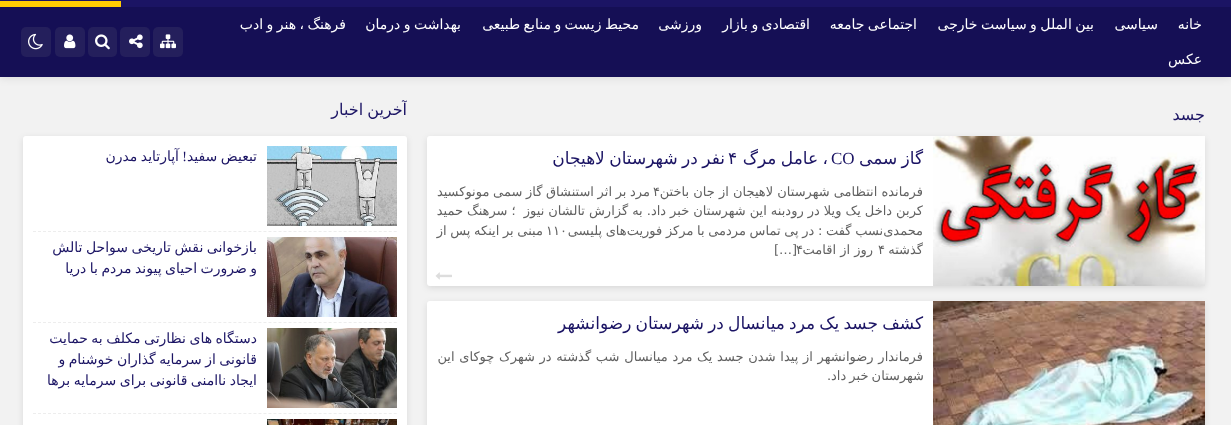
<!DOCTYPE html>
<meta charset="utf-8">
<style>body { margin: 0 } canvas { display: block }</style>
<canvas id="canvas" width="1231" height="425"></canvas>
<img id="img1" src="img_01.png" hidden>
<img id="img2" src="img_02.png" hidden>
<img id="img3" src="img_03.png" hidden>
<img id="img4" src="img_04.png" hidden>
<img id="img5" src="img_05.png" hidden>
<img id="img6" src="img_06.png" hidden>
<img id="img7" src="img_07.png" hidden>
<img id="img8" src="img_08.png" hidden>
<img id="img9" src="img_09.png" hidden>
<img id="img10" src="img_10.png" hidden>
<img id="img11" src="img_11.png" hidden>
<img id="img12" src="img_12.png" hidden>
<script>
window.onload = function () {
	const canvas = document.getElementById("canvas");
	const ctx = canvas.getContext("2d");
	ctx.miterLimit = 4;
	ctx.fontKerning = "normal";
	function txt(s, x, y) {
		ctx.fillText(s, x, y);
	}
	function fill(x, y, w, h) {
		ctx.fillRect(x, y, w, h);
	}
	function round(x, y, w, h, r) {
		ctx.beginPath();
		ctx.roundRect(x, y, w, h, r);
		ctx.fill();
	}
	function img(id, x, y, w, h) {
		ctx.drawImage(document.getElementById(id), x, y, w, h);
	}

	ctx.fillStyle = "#F2F2F2";
	fill(0, 0, 1231, 425);
	ctx.fillStyle = "rgba(0, 0, 0, 0.1)";
	ctx.filter = "blur(4px)";
	ctx.beginPath();
	ctx.rect(0, -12, 1231, 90);
	ctx.fill();
	ctx.filter = "none";
	ctx.fillStyle = "#1B1464";
	fill(0, 0, 1231, 1);
	ctx.fillStyle = "#150F55";
	fill(0, 7, 1231, 70);
	ctx.fillStyle = "#1B1464";
	fill(121, 1, 1110, 6);
	ctx.fillStyle = "#FFCC03";
	fill(0, 1, 121, 6);
	ctx.fillStyle = "#241F5C";
	round(153, 27, 30, 30, 5);
	img("img1", 160, 34, 16, 15);
	round(120, 27, 30, 30, 5);
	img("img2", 129, 34, 14, 15);
	round(88, 27, 29, 30, 5);
	img("img3", 95, 34, 15, 16);
	round(55, 27, 30, 30, 5);
	img("img4", 64, 34, 12, 15);
	round(21, 27, 30, 30, 5);
	img("img5", 28, 33, 15, 17);
	ctx.fillStyle = "rgba(0, 0, 0, 0.1)";
	ctx.filter = "blur(3px)";
	ctx.beginPath();
	ctx.roundRect(427, 138, 778, 150, 3);
	ctx.fill();
	ctx.filter = "none";
	ctx.fillStyle = "#FFFFFF";
	round(427, 136, 778, 150, 3);
	img("img6", 933, 136, 272, 150);
	img("img7", 435, 272, 17, 8);
	ctx.fillStyle = "rgba(0, 0, 0, 0.1)";
	ctx.filter = "blur(3px)";
	ctx.beginPath();
	ctx.roundRect(427, 303, 778, 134, 3);
	ctx.fill();
	ctx.filter = "none";
	ctx.fillStyle = "#FFFFFF";
	round(427, 301, 778, 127, 3);
	img("img8", 933, 301, 272, 124);
	ctx.fillStyle = "rgba(0, 0, 0, 0.1)";
	ctx.filter = "blur(3px)";
	ctx.beginPath();
	ctx.roundRect(23, 138, 384, 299, 3);
	ctx.fill();
	ctx.filter = "none";
	ctx.fillStyle = "#FFFFFF";
	round(23, 136, 384, 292, 3);
	ctx.beginPath();
	ctx.moveTo(33, 231.5);
	ctx.lineTo(397, 231.5);
	ctx.strokeStyle = "#EDEDED";
	ctx.setLineDash([3, 2.01]);
	ctx.stroke();
	img("img9", 267, 146, 130, 80);
	ctx.beginPath();
	ctx.moveTo(33, 322.5);
	ctx.lineTo(397, 322.5);
	ctx.stroke();
	img("img10", 267, 237, 130, 80);
	ctx.beginPath();
	ctx.moveTo(33, 413.5);
	ctx.lineTo(397, 413.5);
	ctx.stroke();
	img("img11", 267, 328, 130, 80);
	img("img12", 267, 419, 130, 6);
	ctx.direction = "rtl";
	ctx.font = "14px DejaVu Sans";
	txt("خانه", 1202, 29);
	txt("سیاسی", 1158, 29);
	ctx.wordSpacing = "-1px";
	txt("بین الملل و سیاست خارجی", 1094, 29);
	txt("اجتماعی جامعه", 917, 29);
	txt("اقتصادی و بازار", 810, 29);
	ctx.wordSpacing = "0px";
	txt("ورزشی", 702, 29);
	ctx.wordSpacing = "-1px";
	txt("محیط زیست و منابع طبیعی", 639, 29);
	txt("بهداشت و درمان", 461, 29);
	txt("فرهنگ ، هنر و ادب", 346, 29);
	ctx.wordSpacing = "0px";
	txt("عکس", 1202, 64);
	ctx.font = "16px DejaVu Sans";
	ctx.fillStyle = "#1B1464";
	txt("جسد", 1205, 120);
	ctx.wordSpacing = "-1.25px";
	ctx.font = "17px DejaVu Sans";
	txt("گاز سمی", 923, 164);
	ctx.wordSpacing = "0px";
	ctx.direction = "ltr";
	ctx.font = "17px Liberation Serif";
	txt("CO", 831, 164);
	ctx.wordSpacing = "-1px";
	ctx.direction = "rtl";
	ctx.font = "17px DejaVu Sans";
	txt("، عامل مرگ", 828, 164);
	ctx.wordSpacing = "0px";
	ctx.direction = "ltr";
	txt("۴", 728, 164);
	ctx.wordSpacing = "-1px";
	ctx.direction = "rtl";
	txt("نفر در شهرستان لاهیجان", 725, 164);
	ctx.wordSpacing = "0px";
	ctx.font = "13px DejaVu Sans";
	ctx.fillStyle = "#626262";
	txt("فرمانده انتظامی شهرستان لاهیجان از جان باختن", 923, 196);
	ctx.direction = "ltr";
	txt("۴", 653, 196);
	ctx.wordSpacing = "-0.5px";
	ctx.direction = "rtl";
	txt("مرد بر اثر استنشاق گاز سمی مونوکسید", 650, 196);
	ctx.wordSpacing = "-0.1px";
	txt("کربن داخل یک ویلا در رودبنه این شهرستان خبر داد. به گزارش تالشان نیوز  ؛ سرهنگ حمید", 923, 215);
	ctx.wordSpacing = "-0.5px";
	txt("محمدی‌نسب گفت : در پی تماس مردمی با مرکز فوریت‌های پلیسی", 923, 235);
	ctx.wordSpacing = "0px";
	ctx.direction = "ltr";
	txt("۱۱۰", 546, 235);
	ctx.wordSpacing = "-0.5px";
	ctx.direction = "rtl";
	txt("مبنی بر اینکه پس از", 543, 235);
	ctx.wordSpacing = "0px";
	txt("گذشته", 923, 254);
	ctx.direction = "ltr";
	txt("۴", 878, 254);
	ctx.direction = "rtl";
	txt("روز از اقامت", 873, 254);
	ctx.direction = "ltr";
	txt("[…]", 774, 254);
	txt("۴", 796, 254);
	ctx.wordSpacing = "-1.25px";
	ctx.direction = "rtl";
	ctx.font = "17px DejaVu Sans";
	ctx.fillStyle = "#1B1464";
	txt("کشف جسد یک مرد میانسال در شهرستان رضوانشهر", 923, 329);
	ctx.wordSpacing = "0.6px";
	ctx.font = "13px DejaVu Sans";
	ctx.fillStyle = "#626262";
	txt("فرماندار رضوانشهر از پیدا شدن جسد یک مرد میانسال شب گذشته در شهرک چوکای این", 923, 361);
	ctx.wordSpacing = "-1px";
	txt("شهرستان خبر داد.", 924, 380);
	ctx.save();
	ctx.beginPath();
	ctx.rect(23, 94, 384, 32);
	ctx.clip();
	ctx.font = "16px DejaVu Sans";
	ctx.fillStyle = "#1B1464";
	txt("آخرین اخبار", 407, 115);
	ctx.restore();
	ctx.font = "14px DejaVu Sans";
	ctx.fillStyle = "#1B1464";
	txt("تبعیض سفید", 257, 161);
	ctx.wordSpacing = "0px";
	ctx.font = "14px Liberation Serif";
	txt("!", 187, 161);
	ctx.wordSpacing = "-1px";
	ctx.font = "14px DejaVu Sans";
	txt("آپارتاید مدرن", 179, 161);
	ctx.save();
	ctx.beginPath();
	ctx.rect(43, 237, 214, 42);
	ctx.clip();
	txt("بازخوانی نقش تاریخی سواحل تالش", 257, 252);
	txt("و ضرورت احیای پیوند مردم با دریا", 257, 273);
	ctx.restore();
	ctx.save();
	ctx.beginPath();
	ctx.rect(43, 328, 214, 63);
	ctx.clip();
	txt("دستگاه های نظارتی مکلف به حمایت", 257, 343);
	txt("قانونی از سرمایه گذاران خوشنام و", 257, 364);
	txt("ایجاد ناامنی قانونی برای سرمایه برها", 257, 385);
	ctx.restore();
};
</script>
